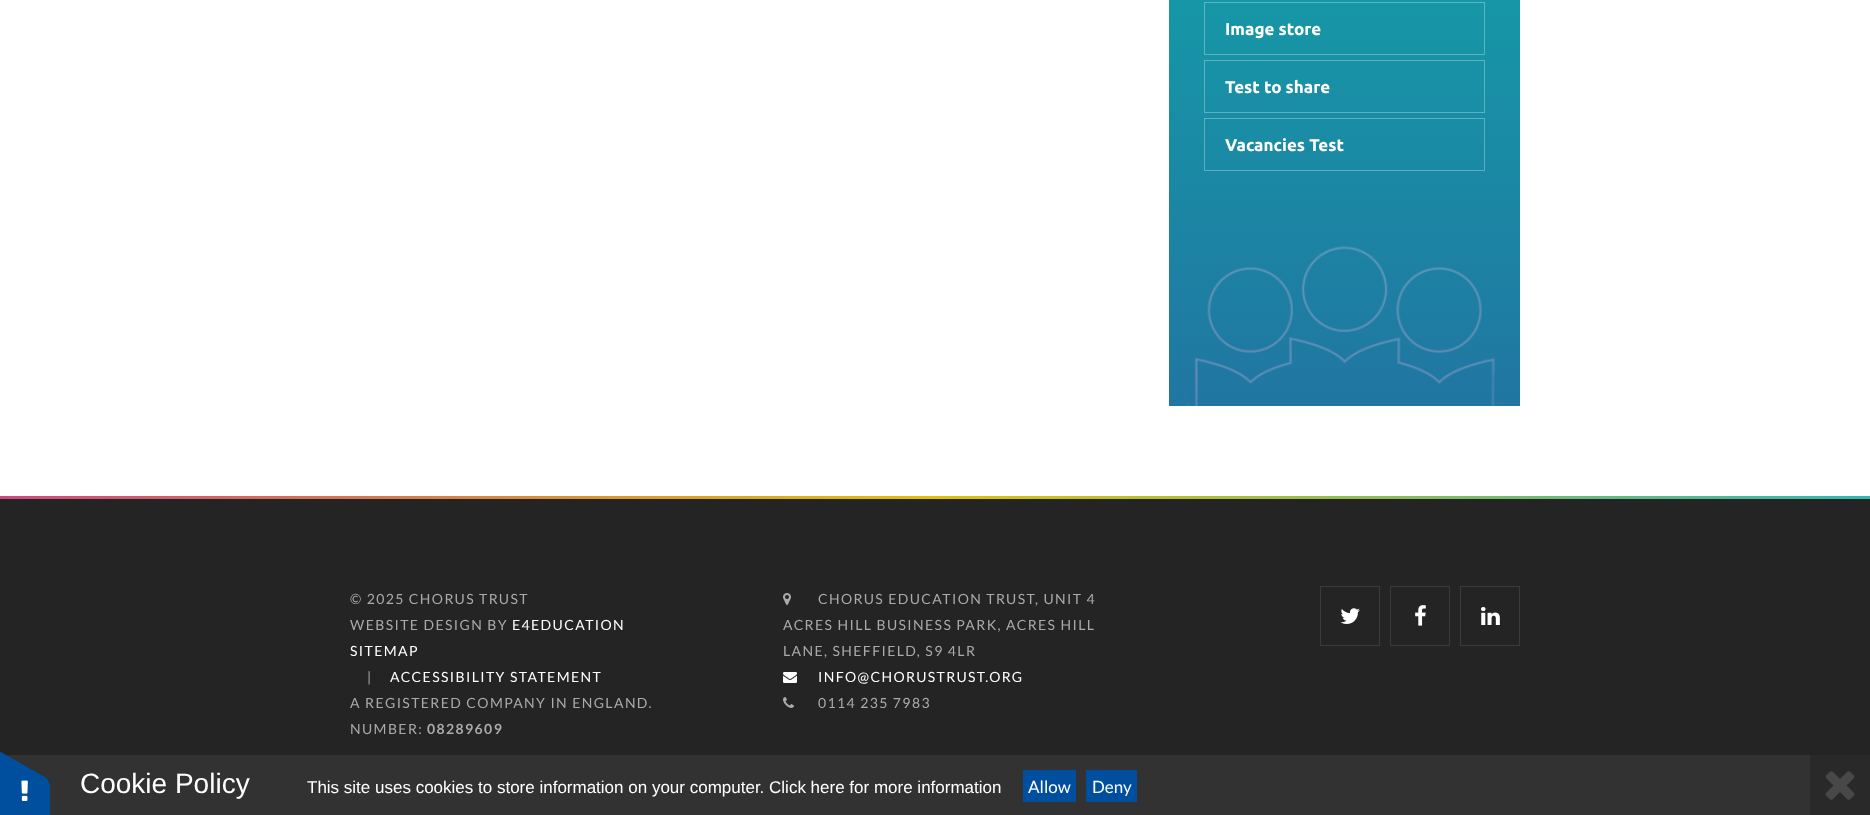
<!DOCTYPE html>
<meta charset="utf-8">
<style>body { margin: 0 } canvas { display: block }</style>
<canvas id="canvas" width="1870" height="815"></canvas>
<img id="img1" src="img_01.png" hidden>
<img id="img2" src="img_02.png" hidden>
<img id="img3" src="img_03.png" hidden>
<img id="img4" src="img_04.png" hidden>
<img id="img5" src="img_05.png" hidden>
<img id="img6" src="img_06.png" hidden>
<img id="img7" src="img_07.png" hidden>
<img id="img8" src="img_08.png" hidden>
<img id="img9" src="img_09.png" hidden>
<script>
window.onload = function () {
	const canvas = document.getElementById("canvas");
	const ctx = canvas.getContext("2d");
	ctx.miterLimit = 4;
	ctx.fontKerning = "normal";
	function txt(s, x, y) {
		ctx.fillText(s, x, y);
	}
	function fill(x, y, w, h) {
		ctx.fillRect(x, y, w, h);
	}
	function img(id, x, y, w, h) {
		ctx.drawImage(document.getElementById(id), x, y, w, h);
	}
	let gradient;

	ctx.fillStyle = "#FFFFFF";
	fill(0, 0, 1870, 815);
	ctx.fillStyle = "#27BEB7";
	fill(1169, 0, 351, 406);
	img("img1", 1184, 246, 320, 160);
	gradient = ctx.createLinearGradient(1345, 406, 1345, -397);
	gradient.addColorStop(0, "rgba(30, 87, 153, 0.7)");
	gradient.addColorStop(1, "rgba(0, 180, 165, 0.7)");
	ctx.fillStyle = gradient;
	fill(1169, 0, 351, 406);
	ctx.strokeStyle = "rgba(255, 255, 255, 0.3)";
	ctx.strokeRect(1204.5, 2.5, 280, 52);
	ctx.strokeRect(1204.5, 60.5, 280, 52);
	ctx.strokeRect(1204.5, 118.5, 280, 52);
	ctx.fillStyle = "#242424";
	fill(0, 499, 1870, 256);
	gradient = ctx.createLinearGradient(0, 498, 1870, 497);
	gradient.addColorStop(0, "#CE4880");
	gradient.addColorStop(0.5, "#E0C008");
	gradient.addColorStop(1, "#33B7B2");
	ctx.fillStyle = gradient;
	fill(0, 496, 1870, 3);
	img("img2", 783, 593, 8, 12);
	img("img3", 783, 672, 14, 11);
	img("img4", 783, 697, 11, 11);
	ctx.strokeStyle = "#3B3B3B";
	ctx.strokeRect(1320.5, 586.5, 59, 59);
	img("img5", 1340, 608, 20, 16);
	ctx.strokeRect(1390.5, 586.5, 59, 59);
	img("img6", 1415, 605, 11, 21);
	ctx.strokeRect(1460.5, 586.5, 59, 59);
	img("img7", 1481, 607, 19, 18);
	ctx.fillStyle = "#323232";
	fill(6, 755, 1804, 60);
	ctx.fillStyle = "#004F9F";
	ctx.beginPath();
	ctx.moveTo(50, 788);
	ctx.lineTo(50, 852);
	ctx.bezierCurveTo(50, 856, 48, 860, 46, 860);
	ctx.lineTo(-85, 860);
	ctx.bezierCurveTo(-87, 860, -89, 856, -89, 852);
	ctx.lineTo(-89, 788);
	ctx.bezierCurveTo(-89, 783, -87, 780, -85, 780);
	ctx.lineTo(46, 780);
	ctx.bezierCurveTo(48, 780, 50, 783, 50, 788);
	ctx.closePath();
	ctx.fill();
	ctx.beginPath();
	ctx.moveTo(-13, 744);
	ctx.lineTo(43, 776);
	ctx.bezierCurveTo(47, 778, 49, 781, 48, 783);
	ctx.lineTo(-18, 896);
	ctx.bezierCurveTo(-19, 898, -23, 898, -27, 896);
	ctx.lineTo(-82, 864);
	ctx.bezierCurveTo(-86, 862, -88, 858, -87, 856);
	ctx.lineTo(-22, 743);
	ctx.bezierCurveTo(-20, 741, -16, 742, -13, 744);
	ctx.closePath();
	ctx.fill();
	img("img8", 21, 780, 7, 21);
	fill(1023, 770, 53, 32);
	fill(1086, 770, 51, 32);
	ctx.fillStyle = "#292929";
	fill(1810, 755, 60, 60);
	img("img9", 1825, 771, 30, 29);
	ctx.font = "bold 17px Ubuntu";
	ctx.fillStyle = "#FFFFFF";
	txt("Image store", 1225, 35);
	txt("Test to share", 1225, 93);
	txt("Vacancies Test", 1225, 151);
	ctx.letterSpacing = "1.4px";
	ctx.font = "14px Lato";
	ctx.fillStyle = "#AAAAAA";
	txt("© 2025 CHORUS TRUST", 350, 604);
	txt("WEBSITE DESIGN BY", 350, 630);
	ctx.fillStyle = "#FFFFFF";
	txt("E4EDUCATION", 512, 630);
	txt("SITEMAP", 350, 656);
	ctx.fillStyle = "#AAAAAA";
	txt("|", 367, 682);
	ctx.fillStyle = "#FFFFFF";
	txt("ACCESSIBILITY STATEMENT", 390, 682);
	ctx.fillStyle = "#AAAAAA";
	txt("A REGISTERED COMPANY IN ENGLAND.", 350, 708);
	txt("NUMBER:", 350, 734);
	ctx.font = "bold 14px Lato";
	txt("08289609", 427, 734);
	ctx.font = "14px Lato";
	txt("CHORUS EDUCATION TRUST, UNIT 4", 818, 604);
	txt("ACRES HILL BUSINESS PARK, ACRES HILL", 783, 630);
	txt("LANE, SHEFFIELD, S9 4LR", 783, 656);
	ctx.fillStyle = "#FFFFFF";
	txt("INFO@CHORUSTRUST.ORG", 818, 682);
	ctx.fillStyle = "#AAAAAA";
	txt("0114 235 7983", 818, 708);
	ctx.letterSpacing = "0px";
	ctx.font = "28px Liberation Sans";
	ctx.fillStyle = "#FFFFFF";
	txt("Cookie Policy", 80, 793);
	ctx.font = "17px Liberation Sans";
	txt("This site uses cookies to store information on your computer. Click here for more information", 307, 793);
	ctx.font = "17px Lato";
	txt("Allow", 1028, 793);
	txt("Deny", 1092, 793);
};
</script>
